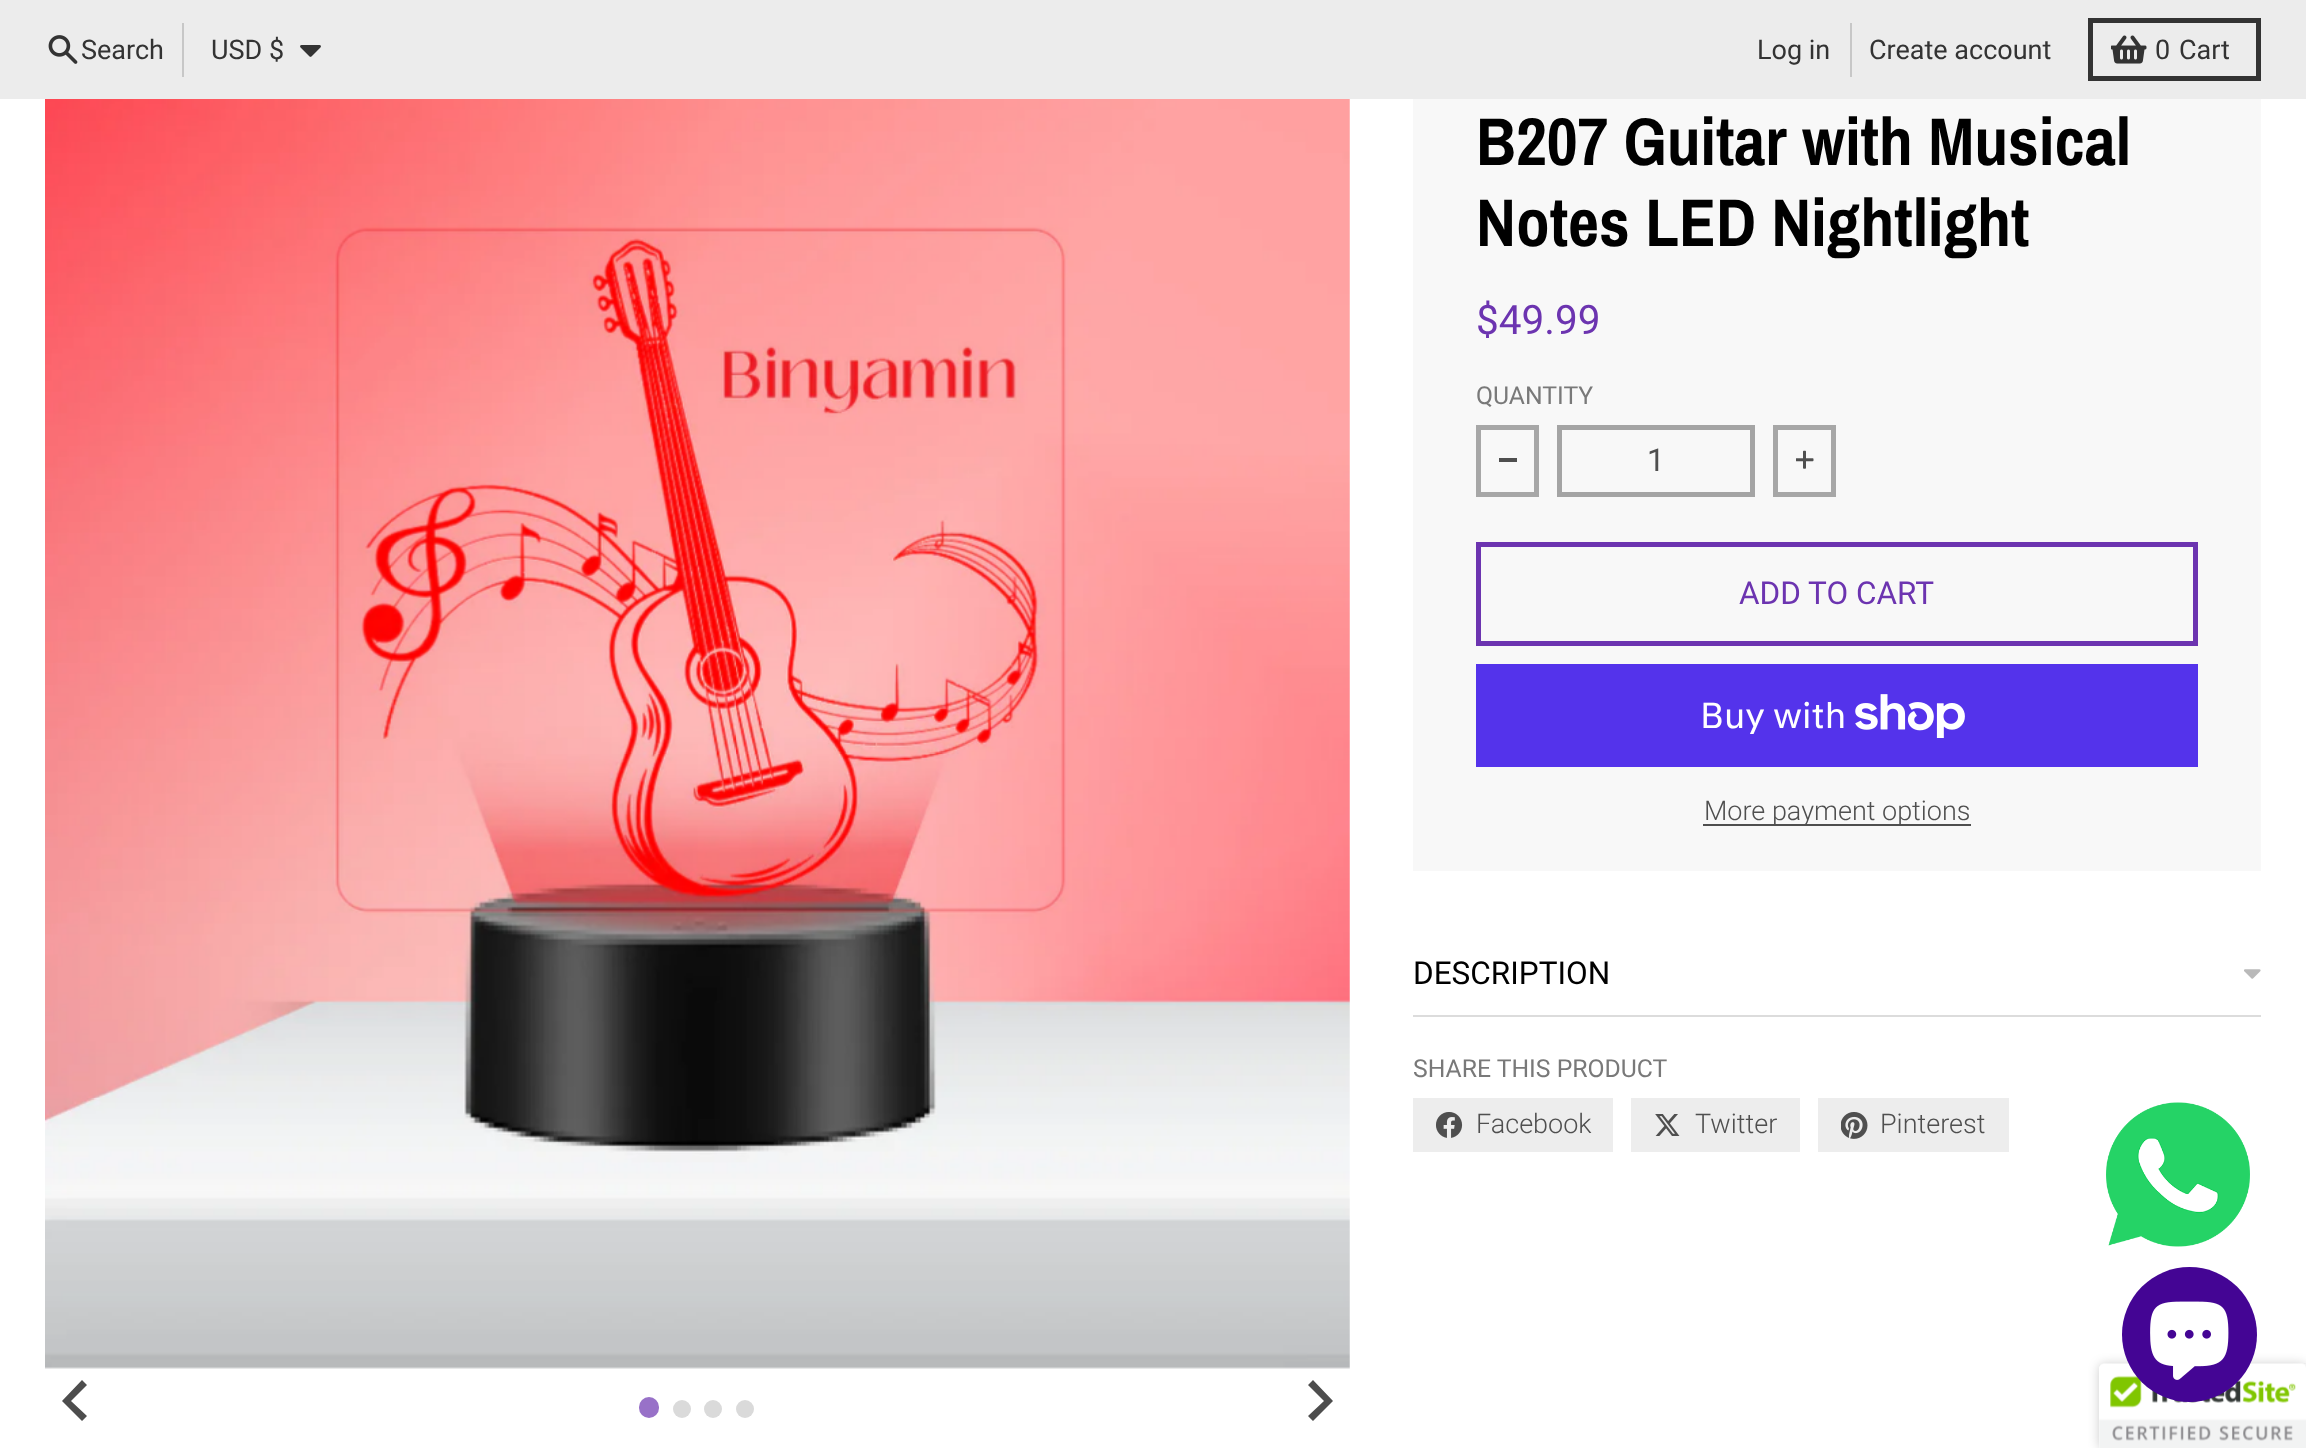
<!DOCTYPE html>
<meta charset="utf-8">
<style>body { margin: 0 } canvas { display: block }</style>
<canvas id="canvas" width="2306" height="1448"></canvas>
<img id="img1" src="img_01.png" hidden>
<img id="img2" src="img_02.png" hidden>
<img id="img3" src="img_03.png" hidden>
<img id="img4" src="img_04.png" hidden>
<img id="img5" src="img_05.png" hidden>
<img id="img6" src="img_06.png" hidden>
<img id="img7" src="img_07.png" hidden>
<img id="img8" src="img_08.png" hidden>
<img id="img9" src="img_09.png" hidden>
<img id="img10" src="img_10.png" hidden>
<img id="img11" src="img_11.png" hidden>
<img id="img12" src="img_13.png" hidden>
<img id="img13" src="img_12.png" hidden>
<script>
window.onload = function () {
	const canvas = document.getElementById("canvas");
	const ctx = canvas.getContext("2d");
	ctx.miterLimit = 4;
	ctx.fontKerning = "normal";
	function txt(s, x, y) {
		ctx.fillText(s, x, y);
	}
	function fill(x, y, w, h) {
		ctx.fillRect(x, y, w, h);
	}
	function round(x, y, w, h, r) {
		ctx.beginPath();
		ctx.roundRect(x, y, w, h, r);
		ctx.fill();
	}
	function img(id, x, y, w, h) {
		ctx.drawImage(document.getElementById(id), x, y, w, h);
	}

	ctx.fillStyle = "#FFFFFF";
	fill(0, 0, 2306, 1448);
	ctx.fillStyle = "#ECECEC";
	fill(0, 0, 2306, 99);
	img("img1", 48, 35, 30, 29);
	ctx.fillStyle = "#C7C7C7";
	fill(182, 23, 2, 54);
	img("img2", 300, 45, 21, 12);
	fill(1850, 23, 2, 54);
	ctx.strokeStyle = "#333333";
	ctx.lineWidth = 5;
	ctx.strokeRect(2090.5, 20.5, 168, 58);
	img("img3", 2111, 35, 36, 29);
	img("img4", 45, 99, 1305, 1270);
	ctx.fillStyle = "#4D4D4D";
	ctx.beginPath();
	ctx.moveTo(82, 1380);
	ctx.lineTo(87, 1385);
	ctx.lineTo(71, 1401);
	ctx.lineTo(87, 1416);
	ctx.lineTo(82, 1421);
	ctx.lineTo(62, 1401);
	ctx.closePath();
	ctx.fill();
	ctx.beginPath();
	ctx.moveTo(1313, 1380);
	ctx.lineTo(1308, 1385);
	ctx.lineTo(1324, 1401);
	ctx.lineTo(1308, 1416);
	ctx.lineTo(1313, 1421);
	ctx.lineTo(1333, 1401);
	ctx.closePath();
	ctx.fill();
	ctx.fillStyle = "#9871C8";
	round(639, 1397, 20, 21, 10);
	ctx.fillStyle = "#DADADA";
	ctx.beginPath();
	ctx.arc(682, 1409, 9, 0, Math.PI * 2);
	ctx.fill();
	ctx.beginPath();
	ctx.arc(713, 1409, 9, 0, Math.PI * 2);
	ctx.fill();
	ctx.beginPath();
	ctx.arc(745, 1409, 9, 0, Math.PI * 2);
	ctx.fill();
	ctx.fillStyle = "#F8F8F8";
	fill(1413, 99, 848, 772);
	ctx.strokeStyle = "#A7A7A7";
	ctx.strokeRect(1478.5, 427.5, 58, 67);
	ctx.fillStyle = "#4F4F4F";
	fill(1499, 458, 18, 4);
	ctx.strokeStyle = "#A4A4A4";
	ctx.strokeRect(1559.5, 427.5, 193, 67);
	ctx.strokeStyle = "#A7A7A7";
	ctx.strokeRect(1775.5, 427.5, 58, 67);
	img("img5", 1796, 450, 18, 19);
	ctx.strokeStyle = "#6C34B0";
	ctx.strokeRect(1478.5, 544.5, 717, 99);
	ctx.fillStyle = "#5433EB";
	fill(1476, 664, 722, 103);
	img("img6", 1855, 694, 110, 44);
	ctx.fillStyle = "#4F4F4F";
	fill(1703, 824, 268, 2);
	ctx.fillStyle = "#DCDCDC";
	fill(1413, 1015, 848, 2);
	img("img7", 2244, 969, 17, 10);
	ctx.fillStyle = "#EDEDED";
	fill(1413, 1098, 200, 54);
	img("img8", 1436, 1112, 27, 26);
	fill(1631, 1098, 169, 54);
	img("img9", 1655, 1114, 25, 22);
	fill(1818, 1098, 191, 54);
	img("img10", 1841, 1112, 27, 27);
	img("img11", 2106, 1102, 144, 145);
	ctx.fillStyle = "rgba(0, 0, 0, 0.2)";
	ctx.filter = "blur(5.5px)";
	ctx.beginPath();
	ctx.roundRect(2099, 1364, 207, 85, 5);
	ctx.fill();
	ctx.filter = "none";
	ctx.fillStyle = "#FFFFFF";
	ctx.beginPath();
	ctx.moveTo(2104, 1364);
	ctx.lineTo(2306, 1364);
	ctx.lineTo(2306, 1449);
	ctx.lineTo(2099, 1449);
	ctx.lineTo(2099, 1369);
	ctx.bezierCurveTo(2099, 1366, 2101, 1364, 2104, 1364);
	ctx.closePath();
	ctx.fill();
	img("img12", 2099, 1363, 207, 85);
	ctx.fillStyle = "#440594";
	ctx.beginPath();
	ctx.arc(2189.5, 1334.5, 67.5, 0, Math.PI * 2);
	ctx.fill();
	img("img13", 2150, 1301, 79, 79);
	ctx.font = "27px Roboto";
	ctx.fillStyle = "#333333";
	txt("Search", 81, 59);
	txt("USD $", 211, 59);
	txt("Log in", 1757, 59);
	txt("Create account", 1869, 59);
	txt("0", 2155, 59);
	txt("Cart", 2179, 59);
	ctx.font = "bold 67.5px Archivo Narrow";
	ctx.fillStyle = "#000000";
	txt("B207 Guitar with Musical", 1476, 165);
	txt("Notes LED Nightlight", 1476, 246);
	ctx.font = "40.5px Roboto";
	ctx.fillStyle = "#6C34B0";
	txt("$49.99", 1476, 334);
	ctx.font = "24.75px Roboto";
	ctx.fillStyle = "#797979";
	txt("QUANTITY", 1476, 404);
	ctx.font = "31.5px Roboto";
	ctx.fillStyle = "#4F4F4F";
	txt("1", 1647, 471);
	ctx.fillStyle = "#6C34B0";
	txt("ADD TO CART", 1739, 604);
	ctx.font = "36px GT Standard";
	ctx.fillStyle = "#FFFFFF";
	txt("Buy with", 1700, 728);
	ctx.font = "300 27px Roboto";
	ctx.fillStyle = "#4F4F4F";
	txt("More payment options", 1704, 820);
	ctx.font = "31.5px Roboto";
	ctx.fillStyle = "#000000";
	txt("DESCRIPTION", 1413, 984);
	ctx.font = "24.75px Roboto";
	ctx.fillStyle = "#797979";
	txt("SHARE THIS PRODUCT", 1413, 1077);
	ctx.font = "300 27px Roboto";
	ctx.fillStyle = "#4F4F4F";
	txt("Facebook", 1476, 1133);
	txt("Twitter", 1695, 1133);
	txt("Pinterest", 1880, 1133);
};
</script>
